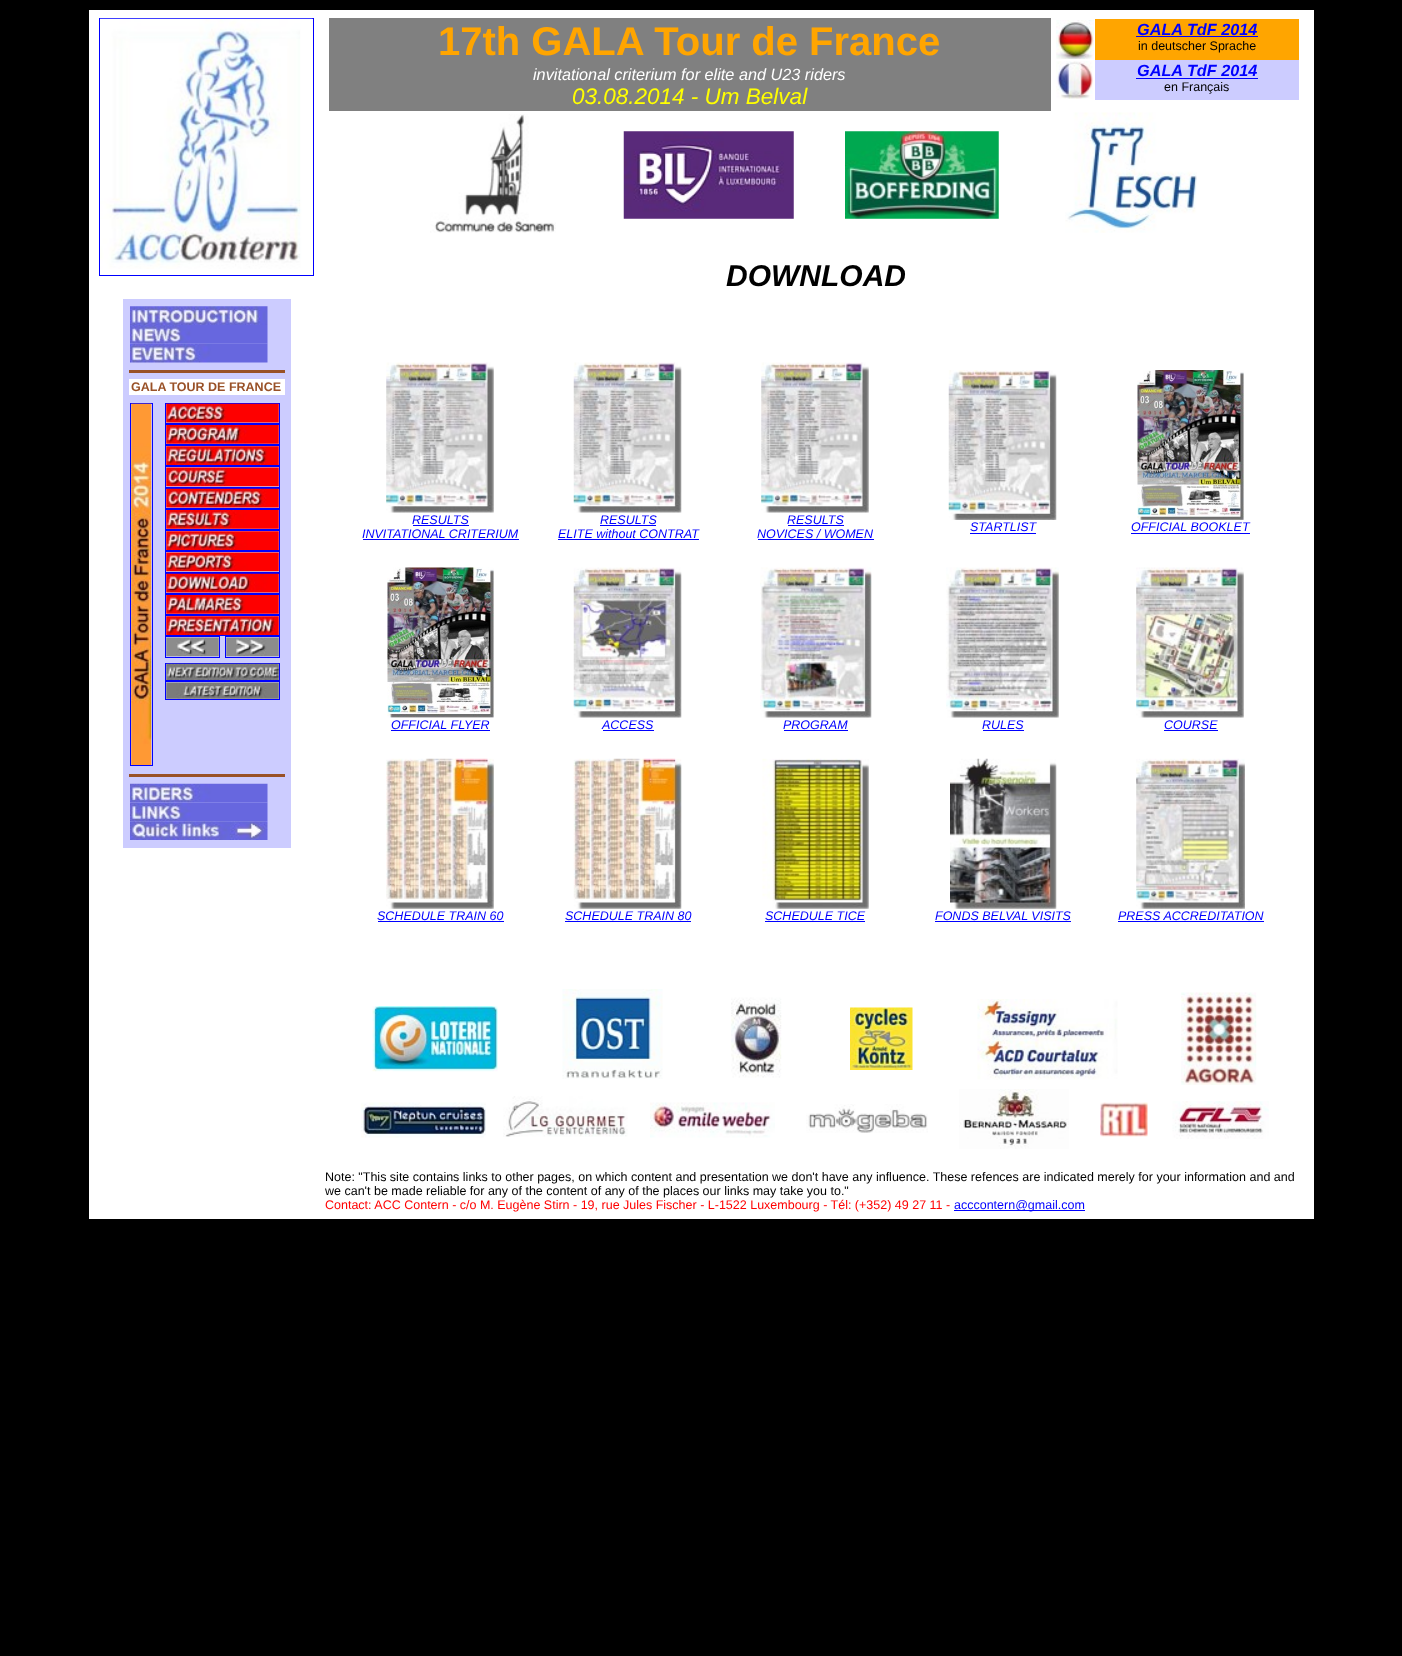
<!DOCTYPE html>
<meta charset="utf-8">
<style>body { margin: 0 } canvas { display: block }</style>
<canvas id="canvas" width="1402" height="1656"></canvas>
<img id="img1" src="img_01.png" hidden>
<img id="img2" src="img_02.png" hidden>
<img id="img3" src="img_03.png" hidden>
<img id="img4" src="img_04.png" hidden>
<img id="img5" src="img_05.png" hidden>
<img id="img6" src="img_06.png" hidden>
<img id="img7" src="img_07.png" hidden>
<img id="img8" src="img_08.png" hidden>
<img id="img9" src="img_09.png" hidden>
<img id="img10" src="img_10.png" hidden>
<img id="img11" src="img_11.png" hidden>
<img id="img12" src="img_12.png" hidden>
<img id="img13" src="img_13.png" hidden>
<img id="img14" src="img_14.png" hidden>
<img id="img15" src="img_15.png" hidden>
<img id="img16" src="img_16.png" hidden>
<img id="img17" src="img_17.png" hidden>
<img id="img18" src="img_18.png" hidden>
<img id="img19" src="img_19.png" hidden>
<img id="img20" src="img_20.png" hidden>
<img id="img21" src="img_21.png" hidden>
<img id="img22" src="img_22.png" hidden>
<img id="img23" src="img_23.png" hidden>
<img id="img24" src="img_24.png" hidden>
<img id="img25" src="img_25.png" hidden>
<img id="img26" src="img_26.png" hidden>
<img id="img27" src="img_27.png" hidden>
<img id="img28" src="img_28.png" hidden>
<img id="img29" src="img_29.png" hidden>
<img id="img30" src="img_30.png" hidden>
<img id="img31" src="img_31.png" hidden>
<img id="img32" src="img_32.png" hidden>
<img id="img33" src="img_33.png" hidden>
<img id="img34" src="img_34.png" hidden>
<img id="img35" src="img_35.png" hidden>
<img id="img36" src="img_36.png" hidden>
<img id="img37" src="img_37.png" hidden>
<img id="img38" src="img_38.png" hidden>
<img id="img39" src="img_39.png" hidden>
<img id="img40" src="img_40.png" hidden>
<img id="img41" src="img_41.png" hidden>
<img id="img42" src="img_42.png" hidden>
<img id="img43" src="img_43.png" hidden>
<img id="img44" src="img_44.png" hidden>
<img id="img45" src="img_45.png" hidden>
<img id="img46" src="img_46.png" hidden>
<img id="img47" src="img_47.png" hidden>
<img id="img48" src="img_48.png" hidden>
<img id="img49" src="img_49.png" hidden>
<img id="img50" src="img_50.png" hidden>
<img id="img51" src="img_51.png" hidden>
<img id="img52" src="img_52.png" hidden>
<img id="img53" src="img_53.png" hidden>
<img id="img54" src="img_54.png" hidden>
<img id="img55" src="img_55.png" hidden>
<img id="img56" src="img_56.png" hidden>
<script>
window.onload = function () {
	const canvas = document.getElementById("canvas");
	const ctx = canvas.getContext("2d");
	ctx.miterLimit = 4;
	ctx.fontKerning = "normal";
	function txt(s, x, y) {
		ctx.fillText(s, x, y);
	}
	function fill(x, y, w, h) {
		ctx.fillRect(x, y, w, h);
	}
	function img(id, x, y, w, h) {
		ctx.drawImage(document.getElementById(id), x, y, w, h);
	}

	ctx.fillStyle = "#000000";
	fill(0, 0, 1402, 1656);
	ctx.fillStyle = "#FFFFFF";
	fill(89, 10, 1225, 1209);
	ctx.strokeStyle = "#0000FF";
	ctx.strokeRect(99.5, 18.5, 214, 257);
	img("img1", 100, 18, 213, 251);
	ctx.fillStyle = "#CCCCFF";
	fill(123, 299, 168, 549);
	img("img2", 130, 306, 138, 19);
	img("img3", 130, 325, 138, 19);
	img("img4", 130, 343, 138, 20);
	ctx.fillStyle = "#995127";
	fill(129, 370, 156, 3);
	ctx.fillStyle = "#FFFFFF";
	fill(129, 379, 156, 16);
	ctx.strokeRect(130.5, 403.5, 22, 362);
	img("img5", 131, 403, 21, 362);
	ctx.strokeRect(165.5, 403.5, 114, 20);
	img("img6", 166, 403, 113, 20);
	ctx.strokeRect(165.5, 424.5, 114, 20);
	img("img7", 166, 425, 113, 19);
	ctx.strokeRect(165.5, 445.5, 114, 20);
	img("img8", 166, 446, 113, 19);
	ctx.strokeRect(165.5, 466.5, 114, 21);
	img("img9", 166, 467, 113, 20);
	ctx.strokeRect(165.5, 488.5, 114, 20);
	img("img10", 166, 488, 113, 20);
	ctx.strokeRect(165.5, 509.5, 114, 20);
	img("img11", 166, 510, 113, 19);
	ctx.strokeRect(165.5, 530.5, 114, 20);
	img("img12", 166, 531, 113, 19);
	ctx.strokeRect(165.5, 551.5, 114, 21);
	img("img13", 166, 552, 113, 20);
	ctx.strokeRect(165.5, 573.5, 114, 20);
	img("img14", 166, 573, 113, 20);
	ctx.strokeRect(165.5, 594.5, 114, 20);
	img("img15", 166, 595, 113, 19);
	ctx.strokeRect(165.5, 615.5, 114, 20);
	img("img16", 166, 616, 113, 19);
	ctx.strokeRect(165.5, 636.5, 54, 21);
	ctx.strokeRect(225.5, 636.5, 54, 21);
	img("img17", 166, 637, 53, 20);
	img("img18", 226, 637, 53, 20);
	ctx.strokeRect(165.5, 663.5, 114, 17);
	img("img19", 166, 663, 113, 17);
	ctx.strokeRect(165.5, 681.5, 114, 18);
	img("img20", 166, 682, 113, 17);
	ctx.fillStyle = "#995127";
	fill(129, 774, 156, 3);
	img("img21", 130, 783, 138, 20);
	img("img22", 130, 802, 138, 20);
	img("img23", 130, 821, 138, 19);
	ctx.fillStyle = "#808080";
	fill(329, 18, 722, 93);
	img("img24", 1056, 20, 38, 39);
	ctx.fillStyle = "#FFA500";
	fill(1095, 19, 204, 41);
	ctx.fillStyle = "#0000FF";
	fill(1136, 36, 122, 1);
	img("img25", 1056, 61, 37, 38);
	ctx.fillStyle = "#CCCCFF";
	fill(1095, 60, 204, 40);
	ctx.fillStyle = "#0000FF";
	fill(1136, 78, 122, 1);
	img("img26", 430, 114, 126, 119);
	img("img27", 623, 131, 171, 88);
	img("img28", 845, 131, 154, 88);
	img("img29", 1065, 112, 132, 121);
	img("img30", 386, 362, 108, 151);
	fill(413, 525, 56, 1);
	fill(363, 539, 156, 1);
	img("img31", 573, 362, 109, 151);
	fill(600, 525, 56, 1);
	fill(558, 539, 141, 1);
	img("img30", 761, 362, 108, 151);
	fill(788, 525, 56, 1);
	fill(758, 539, 116, 1);
	img("img32", 948, 370, 109, 150);
	fill(970, 533, 66, 1);
	img("img33", 1137, 370, 107, 150);
	fill(1131, 533, 119, 1);
	img("img34", 387, 567, 107, 151);
	fill(391, 730, 99, 1);
	img("img35", 573, 567, 109, 151);
	fill(603, 730, 51, 1);
	img("img36", 760, 567, 112, 151);
	fill(784, 730, 64, 1);
	img("img37", 946, 567, 113, 151);
	fill(983, 730, 41, 1);
	img("img38", 1136, 567, 108, 151);
	fill(1164, 730, 54, 1);
	img("img39", 386, 758, 108, 151);
	fill(378, 921, 126, 1);
	img("img40", 573, 758, 109, 151);
	fill(565, 921, 126, 1);
	img("img41", 762, 758, 107, 151);
	fill(765, 921, 100, 1);
	img("img42", 950, 758, 107, 151);
	fill(935, 921, 136, 1);
	img("img43", 1136, 758, 109, 151);
	fill(1118, 921, 146, 1);
	img("img44", 372, 1006, 126, 66);
	img("img45", 562, 989, 101, 90);
	img("img46", 731, 997, 51, 81);
	img("img47", 850, 1007, 63, 63);
	img("img48", 977, 999, 141, 81);
	img("img49", 1181, 992, 76, 93);
	img("img50", 361, 1102, 125, 36);
	img("img51", 503, 1096, 125, 41);
	img("img52", 650, 1102, 125, 36);
	img("img53", 806, 1104, 122, 29);
	img("img54", 959, 1089, 110, 60);
	img("img55", 1100, 1102, 48, 35);
	img("img56", 1172, 1101, 97, 38);
	fill(954, 1210, 131, 1);
	ctx.font = "bold 12.5px Liberation Sans";
	ctx.fillStyle = "#995127";
	txt("GALA TOUR DE FRANCE", 131, 391);
	ctx.font = "bold 40px Liberation Sans";
	ctx.fillStyle = "#FFA500";
	txt("17th GALA Tour de France", 438, 55);
	ctx.font = "italic 16.25px Liberation Sans";
	ctx.fillStyle = "#FFFFFF";
	txt("invitational criterium for elite and U23 riders", 533, 80);
	ctx.font = "italic 22.5px Liberation Sans";
	ctx.fillStyle = "#FFFF00";
	txt("03.08.2014 - Um Belval", 572, 104);
	ctx.font = "italic bold 16.25px Liberation Sans";
	ctx.fillStyle = "#0000FF";
	txt("GALA TdF 2014", 1137, 35);
	ctx.font = "12.5px Liberation Sans";
	ctx.fillStyle = "#000000";
	txt("in deutscher Sprache", 1138, 50);
	ctx.font = "italic bold 16.25px Liberation Sans";
	ctx.fillStyle = "#0000FF";
	txt("GALA TdF 2014", 1137, 76);
	ctx.font = "12.5px Liberation Sans";
	ctx.fillStyle = "#000000";
	txt("en Français", 1164, 91);
	ctx.font = "italic bold 30px Liberation Sans";
	txt("DOWNLOAD", 726, 286);
	ctx.font = "italic 12.5px Liberation Sans";
	ctx.fillStyle = "#0000FF";
	txt("RESULTS", 412, 524);
	txt("INVITATIONAL CRITERIUM", 362, 538);
	txt("RESULTS", 600, 524);
	txt("ELITE without CONTRAT", 558, 538);
	txt("RESULTS", 787, 524);
	txt("NOVICES / WOMEN", 757, 538);
	txt("STARTLIST", 970, 531);
	txt("OFFICIAL BOOKLET", 1131, 531);
	txt("OFFICIAL FLYER", 391, 729);
	txt("ACCESS", 602, 729);
	txt("PROGRAM", 783, 729);
	txt("RULES", 982, 729);
	txt("COURSE", 1164, 729);
	txt("SCHEDULE TRAIN 60", 377, 920);
	txt("SCHEDULE TRAIN 80", 565, 920);
	txt("SCHEDULE TICE", 765, 920);
	txt("FONDS BELVAL VISITS", 935, 920);
	txt("PRESS ACCREDITATION", 1118, 920);
	ctx.font = "12.5px Liberation Sans";
	ctx.fillStyle = "#000000";
	txt("Note: \"This site contains links to other pages, on which content and presentation we don't have any influence. These refences are indicated merely for your information and and", 325, 1181);
	txt("we can't be made reliable for any of the content of any of the places our links may take you to.\"", 325, 1195);
	ctx.fillStyle = "#FF0000";
	txt("Contact: ACC Contern - c/o M. Eugène Stirn - 19, rue Jules Fischer - L-1522 Luxembourg - Tél: (+352) 49 27 11 -", 325, 1209);
	ctx.fillStyle = "#0000FF";
	txt("acccontern@gmail.com", 954, 1209);
};
</script>
